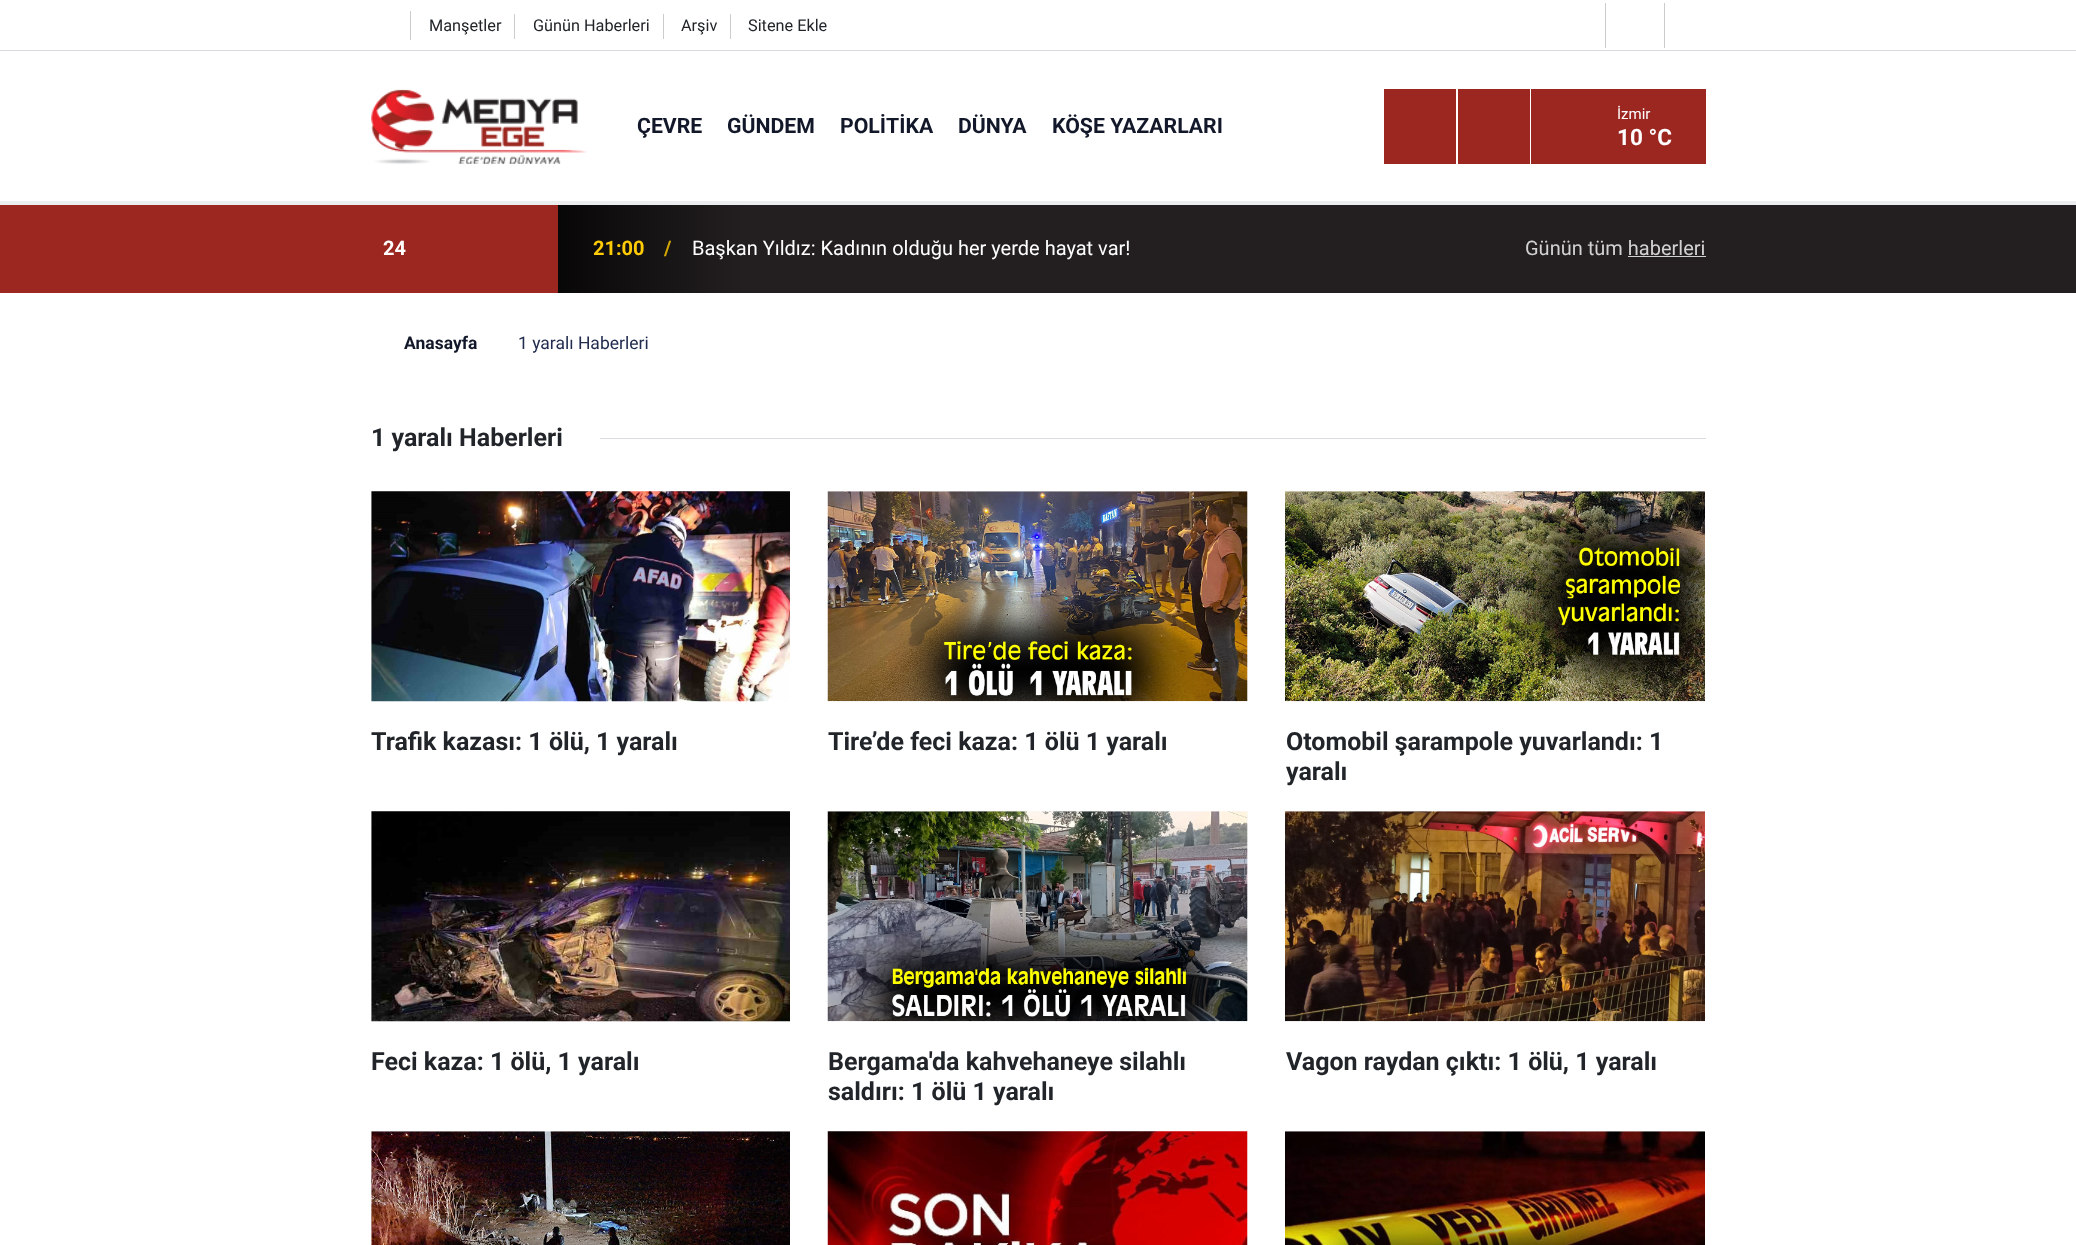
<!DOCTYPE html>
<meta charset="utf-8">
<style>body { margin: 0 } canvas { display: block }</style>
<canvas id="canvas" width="2076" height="1245"></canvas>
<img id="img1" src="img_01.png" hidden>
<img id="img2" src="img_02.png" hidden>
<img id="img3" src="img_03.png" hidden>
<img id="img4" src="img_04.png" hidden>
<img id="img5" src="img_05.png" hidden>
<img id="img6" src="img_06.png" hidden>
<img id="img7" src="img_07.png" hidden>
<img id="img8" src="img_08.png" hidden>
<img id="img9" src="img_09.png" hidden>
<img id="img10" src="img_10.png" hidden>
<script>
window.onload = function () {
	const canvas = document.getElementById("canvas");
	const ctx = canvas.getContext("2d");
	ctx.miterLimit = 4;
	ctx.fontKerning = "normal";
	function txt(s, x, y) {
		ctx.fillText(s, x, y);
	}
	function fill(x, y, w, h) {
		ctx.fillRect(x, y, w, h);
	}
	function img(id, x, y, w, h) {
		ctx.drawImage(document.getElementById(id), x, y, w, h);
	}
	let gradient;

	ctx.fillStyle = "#FFFFFF";
	fill(0, 0, 2076, 1245);
	ctx.fillStyle = "#CCCCCC";
	fill(410, 11, 1, 29);
	fill(514, 14, 1, 25);
	fill(663, 14, 1, 25);
	fill(730, 14, 1, 25);
	fill(1605, 3, 1, 45);
	fill(1664, 3, 1, 45);
	ctx.fillStyle = "#D7DAE1";
	fill(0, 50, 2076, 1);
	ctx.fillStyle = "#ECEDEE";
	fill(0, 201, 2076, 4);
	img("img1", 371, 89, 216, 75);
	ctx.fillStyle = "#9C2721";
	fill(1384, 89, 72, 75);
	fill(1458, 89, 72, 75);
	fill(1531, 89, 175, 75);
	fill(0, 205, 371, 88);
	ctx.fillStyle = "#231F20";
	fill(1706, 205, 370, 88);
	gradient = ctx.createLinearGradient(371, 249, 1706, 249);
	gradient.addColorStop(0.05, "#9C2721");
	gradient.addColorStop(0.14, "#9C2721");
	gradient.addColorStop(0.14, "#080707");
	gradient.addColorStop(0.28, "#231F20");
	ctx.fillStyle = gradient;
	fill(371, 205, 1335, 88);
	ctx.fillStyle = "#D3D2D2";
	fill(1628, 256, 78, 1);
	ctx.fillStyle = "#D9DBE2";
	fill(600, 438, 1106, 1);
	ctx.fillStyle = "#F8F8F8";
	fill(371, 491, 419, 210);
	img("img2", 371, 491, 419, 211);
	fill(828, 491, 420, 210);
	img("img3", 827, 491, 421, 211);
	fill(1285, 491, 420, 1);
	img("img4", 1285, 491, 420, 211);
	fill(371, 811, 419, 210);
	img("img5", 371, 811, 419, 211);
	fill(828, 811, 420, 210);
	img("img6", 827, 811, 421, 211);
	fill(1285, 811, 420, 1);
	img("img7", 1285, 811, 420, 211);
	fill(371, 1131, 419, 114);
	img("img8", 371, 1131, 419, 114);
	fill(828, 1131, 420, 114);
	img("img9", 827, 1131, 421, 114);
	fill(1285, 1131, 420, 1);
	img("img10", 1285, 1131, 420, 114);
	ctx.font = "16.25px Roboto";
	ctx.fillStyle = "#212529";
	txt("Manşetler", 429, 31);
	txt("Günün Haberleri", 533, 31);
	txt("Arşiv", 681, 31);
	txt("Sitene Ekle", 748, 31);
	ctx.font = "bold 21.25px Roboto";
	ctx.fillStyle = "#12182A";
	txt("ÇEVRE", 637, 133);
	txt("GÜNDEM", 727, 133);
	txt("POLİTİKA", 840, 133);
	txt("DÜNYA", 958, 133);
	txt("KÖŞE YAZARLARI", 1052, 133);
	ctx.font = "15px Roboto";
	ctx.fillStyle = "#FFFFFF";
	txt("İzmir", 1617, 119);
	ctx.font = "bold 22.5px Roboto";
	txt("10 °C", 1617, 145);
	ctx.font = "bold 20px Roboto";
	txt("24", 383, 255);
	ctx.fillStyle = "#FFCB05";
	txt("21:00", 593, 255);
	ctx.fillStyle = "#D1A600";
	txt("/", 664, 255);
	ctx.font = "20px Roboto";
	ctx.fillStyle = "#FFFFFF";
	txt("Başkan Yıldız: Kadının olduğu her yerde hayat var!", 692, 255);
	ctx.fillStyle = "#D3D2D2";
	txt("Günün tüm haberleri", 1525, 255);
	ctx.font = "bold 17.5px Roboto";
	ctx.fillStyle = "#12182A";
	txt("Anasayfa", 404, 349);
	ctx.font = "17.5px Roboto";
	ctx.fillStyle = "#212C4E";
	txt("1 yaralı Haberleri", 518, 349);
	ctx.font = "bold 25px Roboto";
	ctx.fillStyle = "#212529";
	txt("1 yaralı Haberleri", 371, 446);
	txt("Trafik kazası: 1 ölü, 1 yaralı", 371, 750);
	txt("Tire’de feci kaza: 1 ölü 1 yaralı", 828, 750);
	txt("Otomobil şarampole yuvarlandı: 1", 1286, 750);
	txt("yaralı", 1286, 780);
	txt("Feci kaza: 1 ölü, 1 yaralı", 371, 1070);
	txt("Bergama'da kahvehaneye silahlı", 828, 1070);
	txt("saldırı: 1 ölü 1 yaralı", 828, 1100);
	txt("Vagon raydan çıktı: 1 ölü, 1 yaralı", 1286, 1070);
};
</script>
